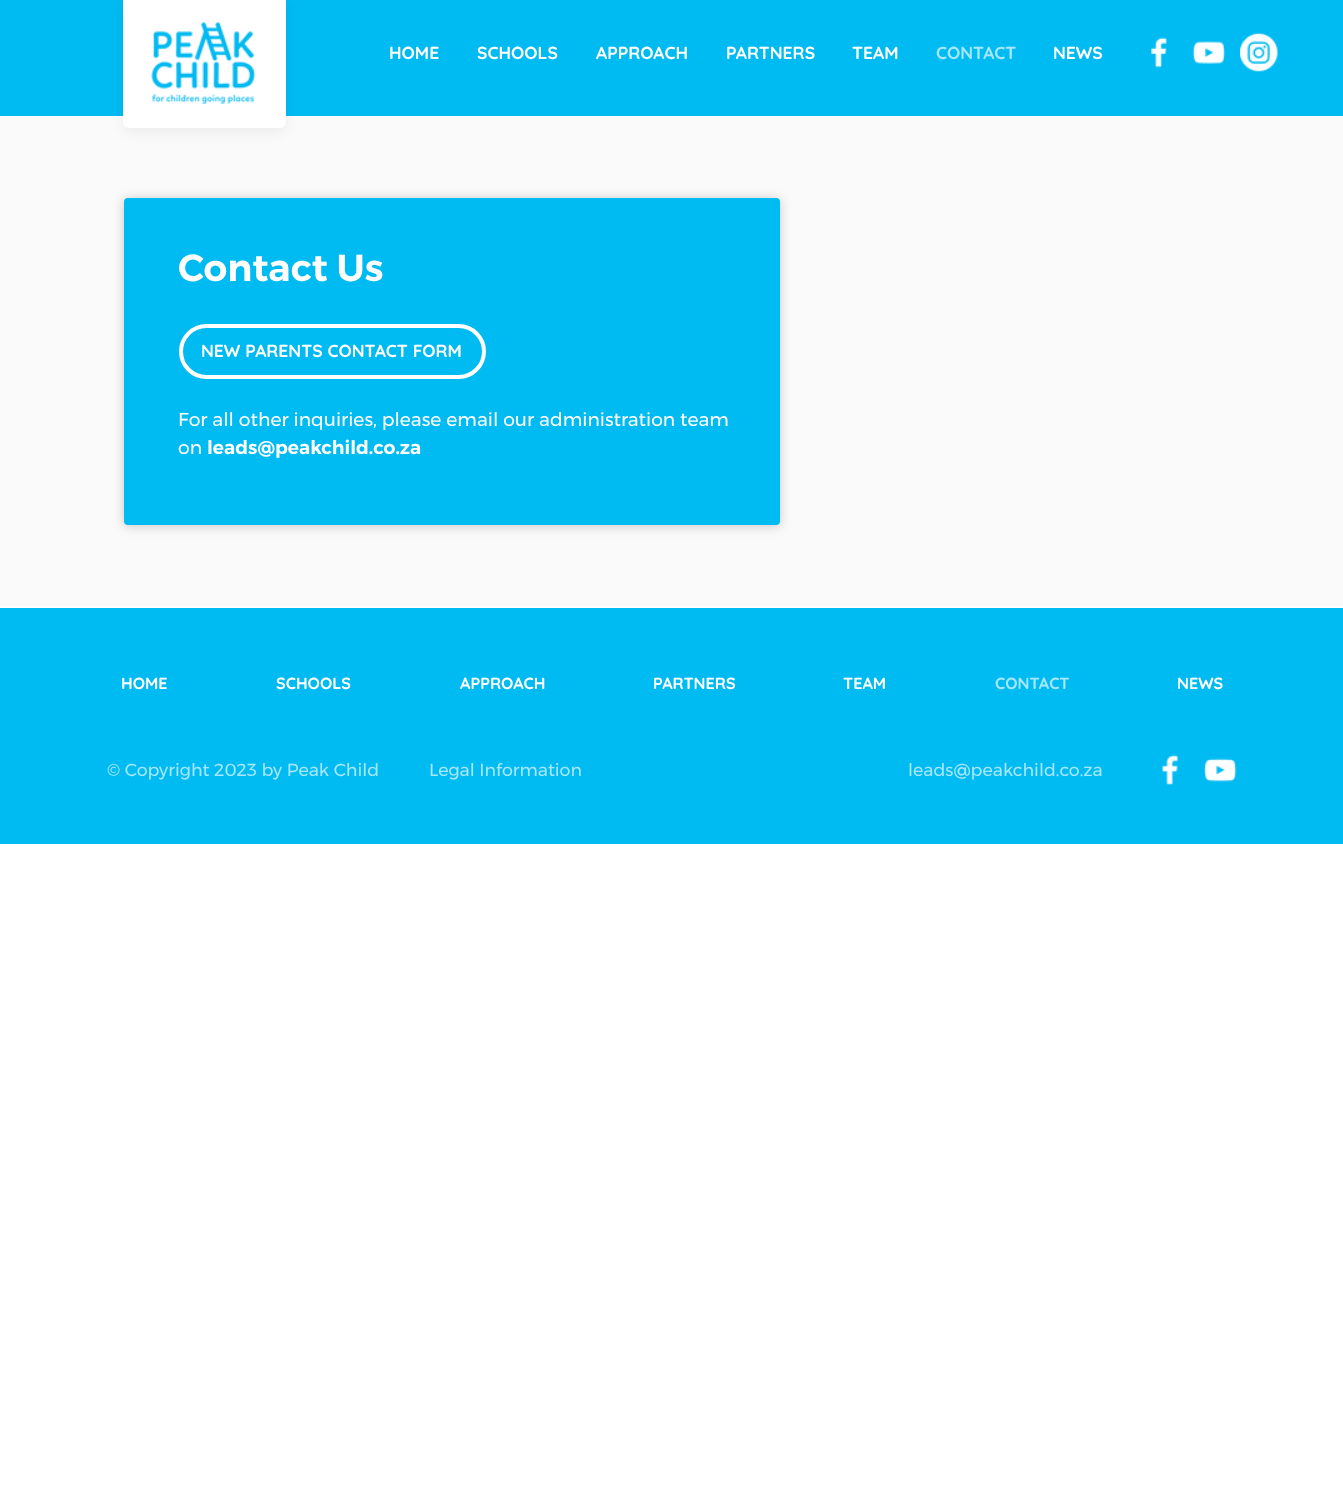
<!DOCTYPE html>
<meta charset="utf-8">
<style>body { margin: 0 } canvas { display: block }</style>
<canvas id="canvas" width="1343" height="1505"></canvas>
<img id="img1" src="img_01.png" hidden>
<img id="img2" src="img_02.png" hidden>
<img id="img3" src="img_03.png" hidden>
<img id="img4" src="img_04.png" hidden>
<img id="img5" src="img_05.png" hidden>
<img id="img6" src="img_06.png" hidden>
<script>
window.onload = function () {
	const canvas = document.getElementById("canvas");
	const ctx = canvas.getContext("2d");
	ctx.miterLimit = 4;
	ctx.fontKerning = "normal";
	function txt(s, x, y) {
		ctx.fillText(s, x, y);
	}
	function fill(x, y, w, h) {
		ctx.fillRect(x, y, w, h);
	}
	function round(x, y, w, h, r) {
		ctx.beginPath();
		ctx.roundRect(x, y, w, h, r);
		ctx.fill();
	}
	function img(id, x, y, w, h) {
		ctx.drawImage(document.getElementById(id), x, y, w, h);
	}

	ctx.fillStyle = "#FFFFFF";
	fill(0, 0, 1343, 1505);
	ctx.fillStyle = "#00BAF2";
	fill(0, 0, 1343, 116);
	ctx.fillStyle = "#FAFAFA";
	fill(0, 116, 1343, 490);
	ctx.fillStyle = "rgba(0, 0, 0, 0.05)";
	ctx.filter = "blur(6px)";
	ctx.beginPath();
	ctx.roundRect(123, 5, 163, 128, 6);
	ctx.fill();
	ctx.filter = "none";
	ctx.fillStyle = "#FFFFFF";
	ctx.beginPath();
	ctx.roundRect(123, 0, 163, 128, [0, 0, 6, 6]);
	ctx.fill();
	img("img1", 151, 22, 105, 82);
	img("img2", 1151, 37, 17, 31);
	img("img3", 1192, 41, 34, 23);
	img("img4", 1240, 33, 38, 39);
	ctx.fillStyle = "rgba(0, 0, 0, 0.2)";
	ctx.filter = "blur(6px)";
	ctx.beginPath();
	ctx.roundRect(124, 199, 656, 327, 4);
	ctx.fill();
	ctx.filter = "none";
	ctx.fillStyle = "#00BAF2";
	round(124, 198, 656, 327, 4);
	ctx.beginPath();
	ctx.roundRect(181, 326, 303, 51, 25.5);
	ctx.strokeStyle = "#FFFFFF";
	ctx.lineWidth = 4;
	ctx.stroke();
	fill(0, 608, 1343, 236);
	img("img5", 1162, 755, 17, 31);
	img("img6", 1204, 758, 33, 24);
	ctx.font = "bold 17.5px Quicksand";
	ctx.fillStyle = "#FFFFFF";
	txt("HOME", 389, 59);
	txt("SCHOOLS", 477, 59);
	txt("APPROACH", 596, 59);
	txt("PARTNERS", 726, 59);
	txt("TEAM", 852, 59);
	ctx.fillStyle = "#A7E7FB";
	txt("CONTACT", 936, 59);
	ctx.fillStyle = "#FFFFFF";
	txt("NEWS", 1053, 59);
	ctx.font = "600 37.5px Montserrat";
	txt("Contact Us", 178, 281);
	ctx.font = "bold 17.5px Quicksand";
	txt("NEW PARENTS CONTACT FORM", 201, 357);
	ctx.font = "18.75px Montserrat";
	txt("For all other inquiries, please email our administration team", 178, 426);
	txt("on", 178, 454);
	ctx.font = "600 18.75px Montserrat";
	txt("leads@peakchild.co.za", 207, 454);
	ctx.font = "bold 16.25px Quicksand";
	txt("HOME", 121, 689);
	txt("SCHOOLS", 276, 689);
	txt("APPROACH", 460, 689);
	txt("PARTNERS", 653, 689);
	txt("TEAM", 843, 689);
	ctx.fillStyle = "#A7E7FB";
	txt("CONTACT", 995, 689);
	ctx.fillStyle = "#FFFFFF";
	txt("NEWS", 1177, 689);
	ctx.font = "17.5px Montserrat";
	ctx.fillStyle = "#A7E7FB";
	txt("© Copyright 2023 by Peak Child", 107, 776);
	txt("Legal Information", 429, 776);
	txt("leads@peakchild.co.za", 908, 776);
};
</script>
